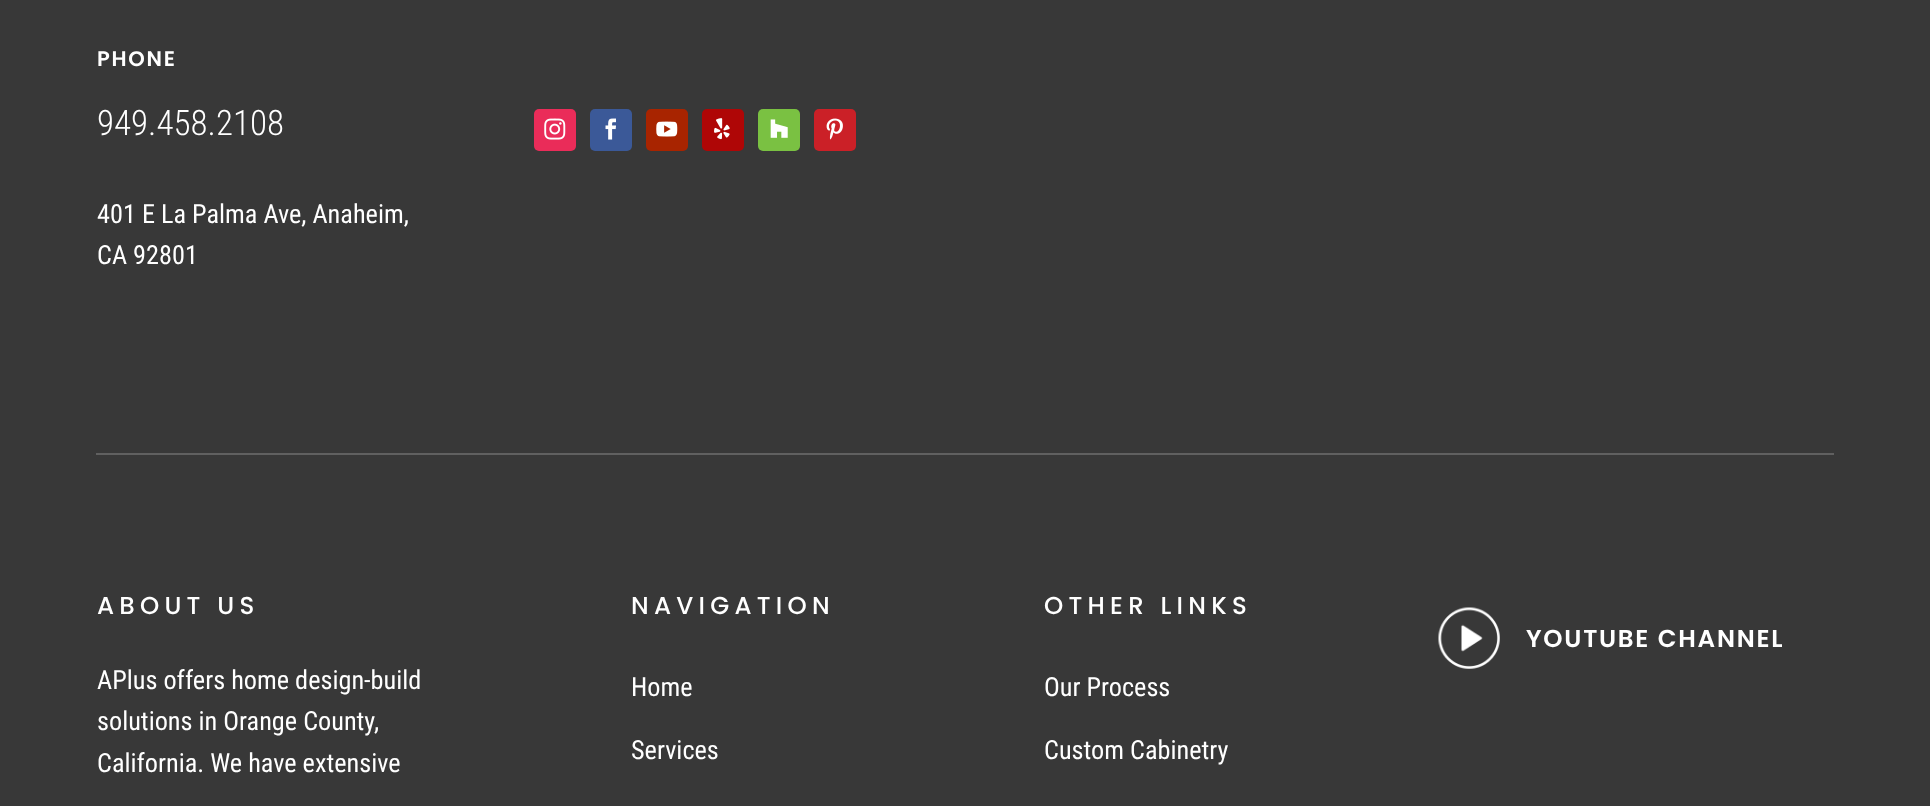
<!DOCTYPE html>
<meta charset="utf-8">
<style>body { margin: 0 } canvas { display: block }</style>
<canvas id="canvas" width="1930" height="806"></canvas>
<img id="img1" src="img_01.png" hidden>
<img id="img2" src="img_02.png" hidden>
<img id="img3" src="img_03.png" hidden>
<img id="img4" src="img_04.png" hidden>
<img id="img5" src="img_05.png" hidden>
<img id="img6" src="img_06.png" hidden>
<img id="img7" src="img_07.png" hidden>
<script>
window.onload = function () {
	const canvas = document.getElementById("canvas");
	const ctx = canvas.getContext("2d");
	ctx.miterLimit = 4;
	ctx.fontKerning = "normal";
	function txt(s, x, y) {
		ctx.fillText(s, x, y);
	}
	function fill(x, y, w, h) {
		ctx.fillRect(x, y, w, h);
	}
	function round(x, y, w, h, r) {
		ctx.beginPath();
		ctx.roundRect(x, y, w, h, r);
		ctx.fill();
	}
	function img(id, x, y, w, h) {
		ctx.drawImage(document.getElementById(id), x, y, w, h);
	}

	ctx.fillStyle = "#383838";
	fill(0, 0, 1930, 806);
	ctx.fillStyle = "#606060";
	fill(96, 453, 1738, 2);
	ctx.fillStyle = "#EA2C59";
	round(534, 109, 42, 42, 5);
	img("img1", 544, 118, 22, 22);
	ctx.fillStyle = "#3B5998";
	round(590, 109, 42, 42, 5);
	img("img2", 605, 118, 11, 22);
	ctx.fillStyle = "#A82400";
	round(646, 109, 42, 42, 5);
	img("img3", 656, 121, 22, 16);
	ctx.fillStyle = "#AF0606";
	round(702, 109, 42, 42, 5);
	img("img4", 714, 118, 16, 22);
	ctx.fillStyle = "#7AC142";
	round(758, 109, 42, 42, 5);
	img("img5", 770, 119, 18, 19);
	ctx.fillStyle = "#CB2027";
	round(814, 109, 42, 42, 5);
	img("img6", 826, 118, 17, 22);
	img("img7", 1438, 607, 62, 62);
	ctx.letterSpacing = "1.75px";
	ctx.font = "600 21px Poppins";
	ctx.fillStyle = "#FFFFFF";
	txt("PHONE", 97, 66);
	ctx.letterSpacing = "0px";
	ctx.font = "300 35px Roboto Condensed";
	txt("949.458.2108", 97, 135);
	ctx.font = "26.25px Roboto Condensed";
	txt("401 E La Palma Ave, Anaheim,", 97, 223);
	txt("CA 92801", 97, 264);
	ctx.letterSpacing = "5.25px";
	ctx.font = "500 24.5px Poppins";
	txt("ABOUT US", 97, 614);
	ctx.letterSpacing = "0px";
	ctx.font = "26.25px Roboto Condensed";
	txt("APlus offers home design-build", 97, 689);
	txt("solutions in Orange County,", 97, 730);
	txt("California. We have extensive", 97, 772);
	ctx.letterSpacing = "5.25px";
	ctx.font = "500 24.5px Poppins";
	txt("NAVIGATION", 631, 614);
	ctx.letterSpacing = "0px";
	ctx.font = "26.25px Roboto Condensed";
	txt("Home", 631, 696);
	txt("Services", 631, 759);
	ctx.letterSpacing = "5.25px";
	ctx.font = "500 24.5px Poppins";
	txt("OTHER LINKS", 1044, 614);
	ctx.letterSpacing = "0px";
	ctx.font = "26.25px Roboto Condensed";
	txt("Our Process", 1044, 696);
	txt("Custom Cabinetry", 1044, 759);
	ctx.letterSpacing = "1.75px";
	ctx.font = "600 24.5px Poppins";
	txt("YOUTUBE CHANNEL", 1526, 647);
};
</script>
